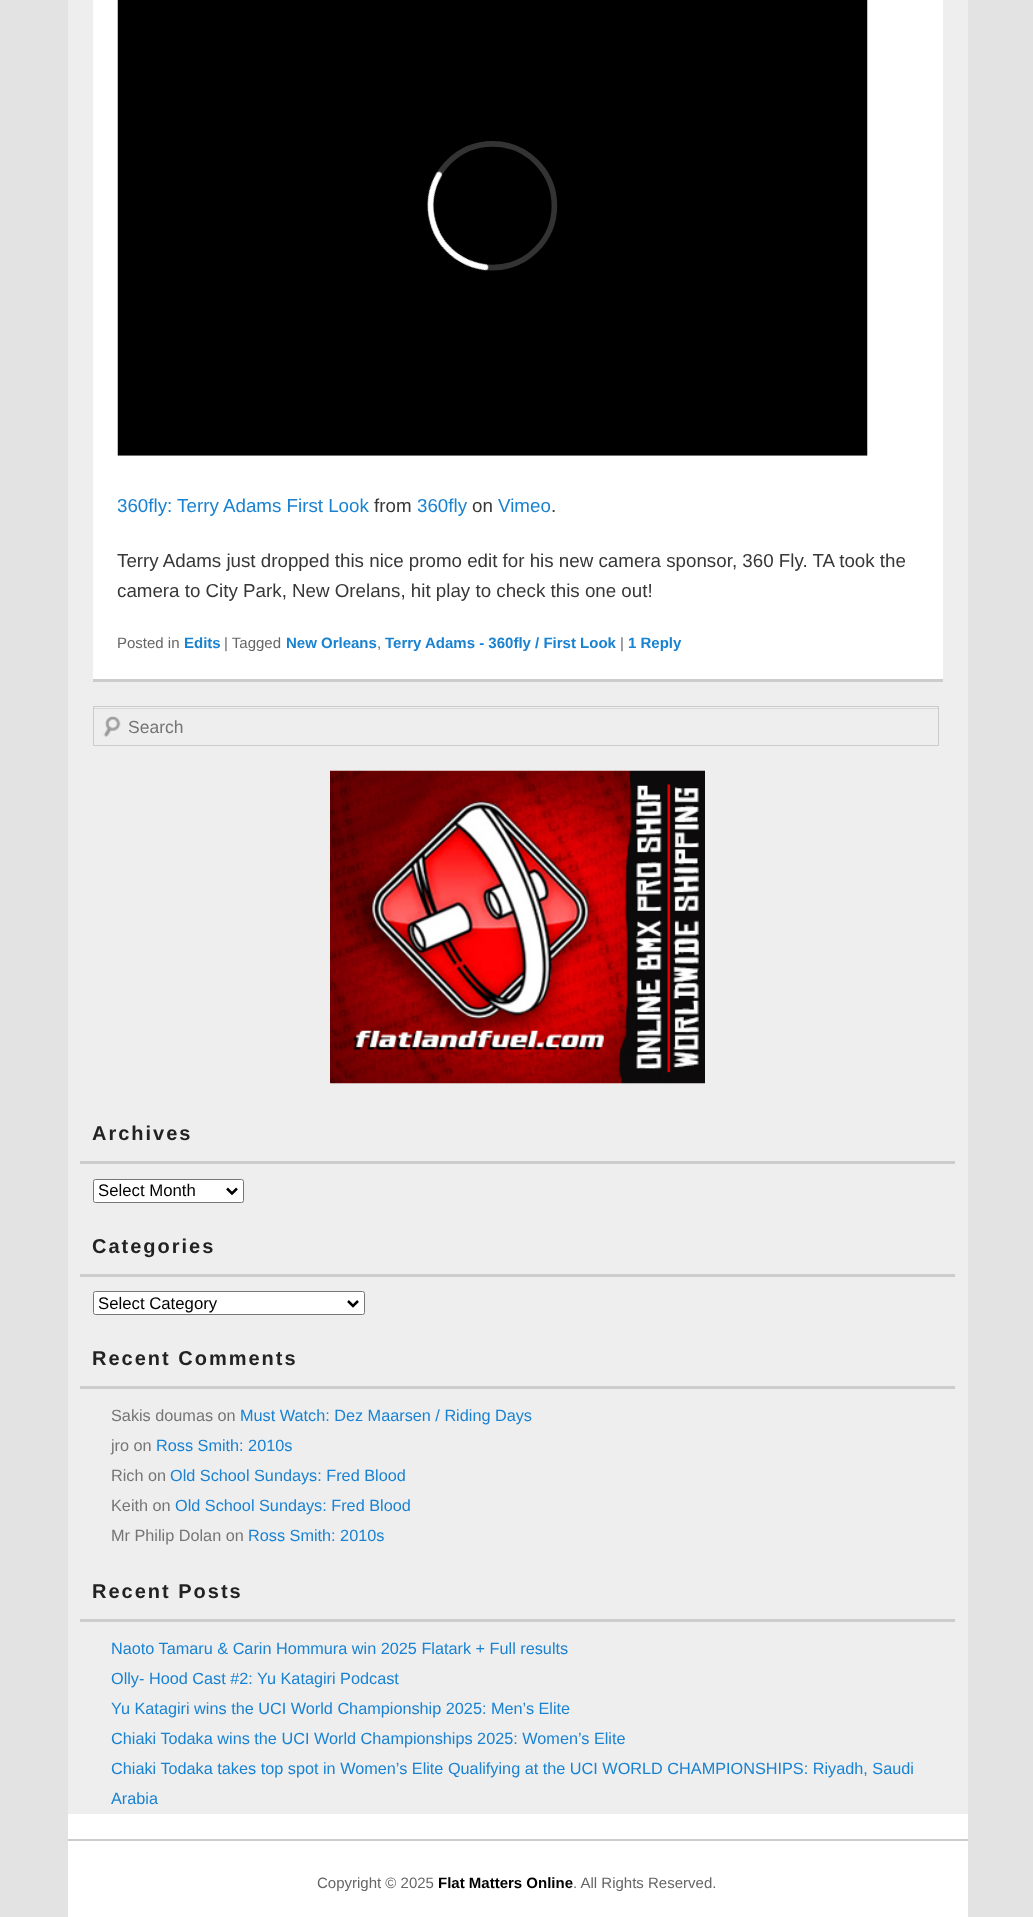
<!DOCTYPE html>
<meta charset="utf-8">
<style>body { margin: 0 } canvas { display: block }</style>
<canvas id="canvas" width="1033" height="1917"></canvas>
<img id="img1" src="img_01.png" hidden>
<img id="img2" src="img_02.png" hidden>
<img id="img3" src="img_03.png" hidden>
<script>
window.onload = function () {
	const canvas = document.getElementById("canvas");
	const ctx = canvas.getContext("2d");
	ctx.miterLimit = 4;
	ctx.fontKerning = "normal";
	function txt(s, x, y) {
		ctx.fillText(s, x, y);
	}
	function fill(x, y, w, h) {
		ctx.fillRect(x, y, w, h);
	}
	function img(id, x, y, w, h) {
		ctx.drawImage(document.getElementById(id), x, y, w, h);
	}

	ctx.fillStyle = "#E3E3E3";
	fill(0, 0, 1033, 1917);
	ctx.fillStyle = "#FFFFFF";
	fill(68, 1814, 900, 103);
	ctx.fillStyle = "#EEEEEE";
	fill(68, 0, 900, 1814);
	ctx.fillStyle = "#FFFFFF";
	fill(93, 0, 850, 679);
	ctx.fillStyle = "#CCCCCC";
	fill(93, 679, 850, 3);
	img("img1", 117, 0, 751, 456);
	img("img2", 103, 716, 18, 21);
	ctx.fillStyle = "#D8D8D8";
	fill(94, 708, 844, 1);
	ctx.strokeStyle = "#CCCCCC";
	ctx.strokeRect(93.5, 706.5, 845, 39);
	img("img3", 330, 770, 375, 314);
	ctx.fillStyle = "#CCCCCC";
	fill(80, 1161, 875, 3);
	ctx.fillStyle = "#FFFFFF";
	ctx.beginPath();
	ctx.roundRect(93.5, 1179.5, 150, 23, 2);
	ctx.fill();
	ctx.strokeStyle = "#767676";
	ctx.stroke();
	ctx.beginPath();
	ctx.moveTo(227, 1188.5);
	ctx.lineTo(232, 1193.5);
	ctx.lineTo(237, 1188.5);
	ctx.strokeStyle = "#000000";
	ctx.lineWidth = 2.5;
	ctx.stroke();
	ctx.fillStyle = "#CCCCCC";
	fill(80, 1274, 875, 3);
	ctx.fillStyle = "#FFFFFF";
	ctx.beginPath();
	ctx.roundRect(93.5, 1291.5, 271, 23, 2);
	ctx.fill();
	ctx.strokeStyle = "#767676";
	ctx.lineWidth = 1;
	ctx.stroke();
	ctx.beginPath();
	ctx.moveTo(348, 1301);
	ctx.lineTo(353, 1306);
	ctx.lineTo(358, 1301);
	ctx.strokeStyle = "#000000";
	ctx.lineWidth = 2.5;
	ctx.stroke();
	ctx.fillStyle = "#CCCCCC";
	fill(80, 1386, 875, 3);
	fill(80, 1619, 875, 3);
	fill(68, 1839, 900, 2);
	ctx.font = "18.75px Liberation Sans";
	ctx.fillStyle = "#1982D1";
	txt("360fly: Terry Adams First Look", 117, 512);
	ctx.fillStyle = "#373737";
	txt("from", 374, 512);
	ctx.fillStyle = "#1982D1";
	txt("360fly", 417, 512);
	ctx.fillStyle = "#373737";
	txt("on", 472, 512);
	ctx.fillStyle = "#1982D1";
	txt("Vimeo", 498, 512);
	ctx.fillStyle = "#373737";
	txt(".", 551, 512);
	txt("Terry Adams just dropped this nice promo edit for his new camera sponsor, 360 Fly. TA took the", 117, 567);
	txt("camera to City Park, New Orelans, hit play to check this one out!", 117, 597);
	ctx.font = "15px Liberation Sans";
	ctx.fillStyle = "#666666";
	txt("Posted in", 117, 648);
	ctx.font = "bold 15px Liberation Sans";
	ctx.fillStyle = "#1982D1";
	txt("Edits", 184, 648);
	ctx.font = "15px Liberation Sans";
	ctx.fillStyle = "#666666";
	txt("| Tagged", 224, 648);
	ctx.font = "bold 15px Liberation Sans";
	ctx.fillStyle = "#1982D1";
	txt("New Orleans", 286, 648);
	ctx.font = "15px Liberation Sans";
	ctx.fillStyle = "#666666";
	txt(",", 377, 648);
	ctx.font = "bold 15px Liberation Sans";
	ctx.fillStyle = "#1982D1";
	txt("Terry Adams - 360fly / First Look", 385, 648);
	ctx.font = "15px Liberation Sans";
	ctx.fillStyle = "#666666";
	txt("|", 620, 648);
	ctx.font = "bold 15px Liberation Sans";
	ctx.fillStyle = "#1982D1";
	txt("1 Reply", 628, 648);
	ctx.font = "17.5px Liberation Sans";
	ctx.fillStyle = "#757575";
	txt("Search", 128, 733);
	ctx.letterSpacing = "2px";
	ctx.font = "bold 20px Liberation Sans";
	ctx.fillStyle = "#222222";
	txt("Archives", 92, 1140);
	ctx.letterSpacing = "0px";
	ctx.font = "16.75px Liberation Sans";
	ctx.fillStyle = "#000000";
	txt("Select Month", 98, 1196);
	ctx.letterSpacing = "2px";
	ctx.font = "bold 20px Liberation Sans";
	ctx.fillStyle = "#222222";
	txt("Categories", 92, 1253);
	ctx.letterSpacing = "0px";
	ctx.font = "16.75px Liberation Sans";
	ctx.fillStyle = "#000000";
	txt("Select Category", 98, 1309);
	ctx.letterSpacing = "2px";
	ctx.font = "bold 20px Liberation Sans";
	ctx.fillStyle = "#222222";
	txt("Recent Comments", 92, 1365);
	ctx.letterSpacing = "0px";
	ctx.font = "16.25px Liberation Sans";
	ctx.fillStyle = "#757575";
	txt("Sakis doumas on", 111, 1421);
	ctx.fillStyle = "#1982D1";
	txt("Must Watch: Dez Maarsen / Riding Days", 240, 1421);
	ctx.fillStyle = "#757575";
	txt("jro on", 111, 1451);
	ctx.fillStyle = "#1982D1";
	txt("Ross Smith: 2010s", 156, 1451);
	ctx.fillStyle = "#757575";
	txt("Rich on", 111, 1481);
	ctx.fillStyle = "#1982D1";
	txt("Old School Sundays: Fred Blood", 170, 1481);
	ctx.fillStyle = "#757575";
	txt("Keith on", 111, 1511);
	ctx.fillStyle = "#1982D1";
	txt("Old School Sundays: Fred Blood", 175, 1511);
	ctx.fillStyle = "#757575";
	txt("Mr Philip Dolan on", 111, 1541);
	ctx.fillStyle = "#1982D1";
	txt("Ross Smith: 2010s", 248, 1541);
	ctx.letterSpacing = "2px";
	ctx.font = "bold 20px Liberation Sans";
	ctx.fillStyle = "#222222";
	txt("Recent Posts", 92, 1598);
	ctx.letterSpacing = "0px";
	ctx.font = "16.25px Liberation Sans";
	ctx.fillStyle = "#1982D1";
	txt("Naoto Tamaru & Carin Hommura win 2025 Flatark + Full results", 111, 1654);
	txt("Olly- Hood Cast #2: Yu Katagiri Podcast", 111, 1684);
	txt("Yu Katagiri wins the UCI World Championship 2025: Men’s Elite", 111, 1714);
	txt("Chiaki Todaka wins the UCI World Championships 2025: Women’s Elite", 111, 1744);
	txt("Chiaki Todaka takes top spot in Women’s Elite Qualifying at the UCI WORLD CHAMPIONSHIPS: Riyadh, Saudi", 111, 1774);
	txt("Arabia", 111, 1804);
	ctx.font = "15px Liberation Sans";
	ctx.fillStyle = "#666666";
	txt("Copyright © 2025", 317, 1888);
	ctx.font = "bold 15px Liberation Sans";
	ctx.fillStyle = "#000000";
	txt("Flat Matters Online", 438, 1888);
	ctx.font = "15px Liberation Sans";
	ctx.fillStyle = "#666666";
	txt(". All Rights Reserved.", 573, 1888);
};
</script>
